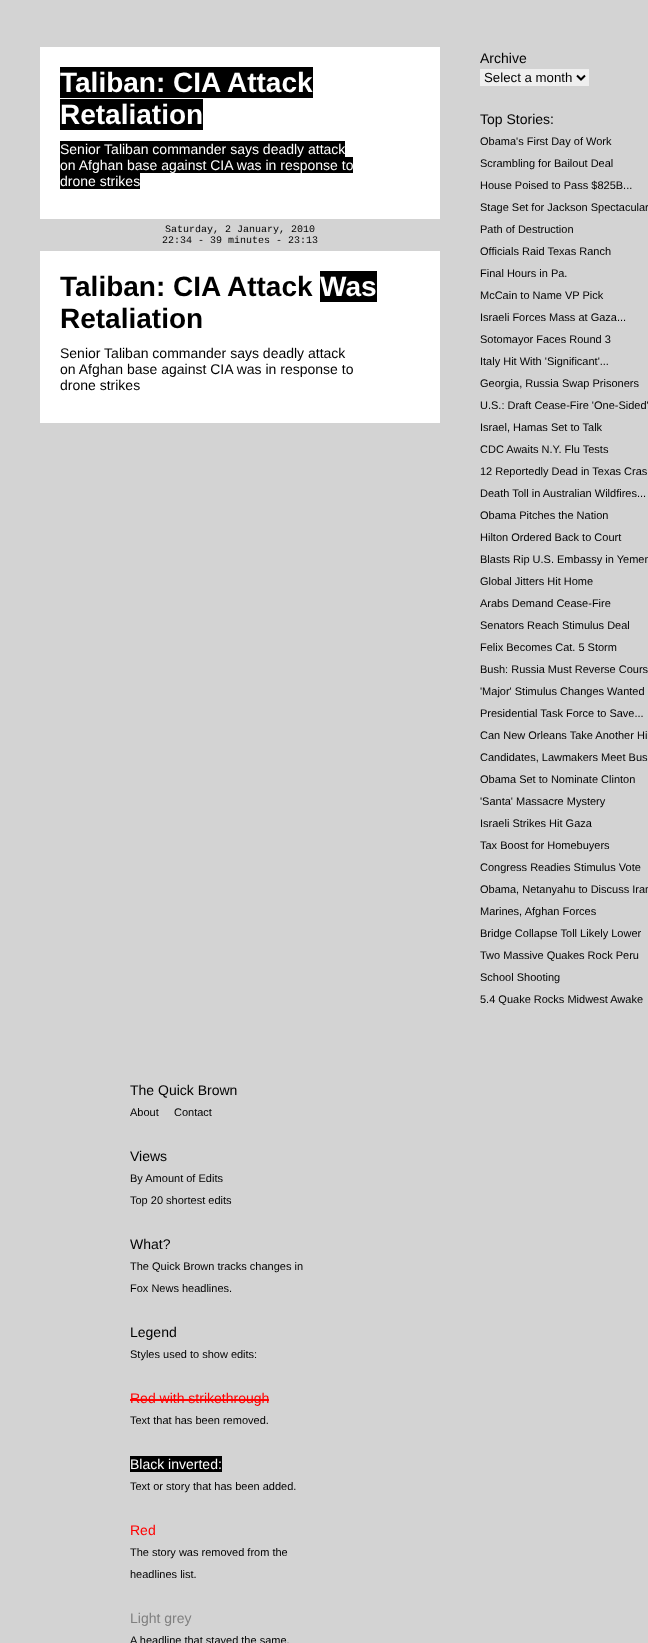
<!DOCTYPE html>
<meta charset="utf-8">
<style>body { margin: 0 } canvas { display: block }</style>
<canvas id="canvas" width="648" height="1643"></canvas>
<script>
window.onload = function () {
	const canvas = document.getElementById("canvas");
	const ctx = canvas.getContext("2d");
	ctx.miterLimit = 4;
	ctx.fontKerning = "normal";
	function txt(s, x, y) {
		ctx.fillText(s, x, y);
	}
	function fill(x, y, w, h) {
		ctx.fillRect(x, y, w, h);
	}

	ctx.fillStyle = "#D3D3D3";
	fill(0, 0, 648, 1643);
	ctx.fillStyle = "#FFFFFF";
	fill(40, 47, 400, 172);
	ctx.fillStyle = "#000000";
	fill(60, 67, 253, 31);
	fill(60, 99, 143, 31);
	fill(60, 141, 285, 16);
	fill(60, 157, 293, 16);
	fill(60, 173, 80, 16);
	ctx.fillStyle = "#FFFFFF";
	fill(40, 251, 400, 172);
	ctx.fillStyle = "#000000";
	fill(320, 271, 57, 31);
	ctx.fillStyle = "#EFEFEF";
	fill(480, 69, 109, 17);
	ctx.beginPath();
	ctx.moveTo(577, 75.5);
	ctx.lineTo(581, 79.5);
	ctx.lineTo(585, 75.5);
	ctx.strokeStyle = "#000000";
	ctx.lineWidth = 2;
	ctx.stroke();
	ctx.fillStyle = "#FF0808";
	fill(130, 1399, 139, 2);
	ctx.fillStyle = "#000000";
	fill(130, 1456, 92, 16);
	ctx.font = "bold 28px Liberation Sans";
	ctx.fillStyle = "#FFFFFF";
	txt("Taliban: CIA Attack", 60, 92);
	txt("Retaliation", 60, 124);
	ctx.font = "14px Liberation Sans";
	txt("Senior Taliban commander says deadly attack", 60, 154);
	txt("on Afghan base against CIA was in response to", 60, 170);
	txt("drone strikes", 60, 186);
	ctx.font = "10px Liberation Mono";
	ctx.fillStyle = "#000000";
	txt("Saturday, 2 January, 2010", 165, 232);
	txt("22:34 - 39 minutes - 23:13", 162, 243);
	ctx.font = "bold 28px Liberation Sans";
	txt("Taliban: CIA Attack", 60, 296);
	ctx.fillStyle = "#FFFFFF";
	txt("Was", 320, 296);
	ctx.fillStyle = "#000000";
	txt("Retaliation", 60, 328);
	ctx.font = "14px Liberation Sans";
	txt("Senior Taliban commander says deadly attack", 60, 358);
	txt("on Afghan base against CIA was in response to", 60, 374);
	txt("drone strikes", 60, 390);
	txt("Archive", 480, 63);
	ctx.font = "13.25px Liberation Sans";
	txt("Select a month", 484, 82);
	ctx.font = "14px Liberation Sans";
	txt("Top Stories:", 480, 124);
	ctx.font = "11px Liberation Sans";
	txt("Obama's First Day of Work", 480, 145);
	txt("Scrambling for Bailout Deal", 480, 167);
	txt("House Poised to Pass $825B...", 480, 189);
	txt("Stage Set for Jackson Spectacular", 480, 211);
	txt("Path of Destruction", 480, 233);
	txt("Officials Raid Texas Ranch", 480, 255);
	txt("Final Hours in Pa.", 480, 277);
	txt("McCain to Name VP Pick", 480, 299);
	txt("Israeli Forces Mass at Gaza...", 480, 321);
	txt("Sotomayor Faces Round 3", 480, 343);
	txt("Italy Hit With 'Significant'...", 480, 365);
	txt("Georgia, Russia Swap Prisoners", 480, 387);
	txt("U.S.: Draft Cease-Fire 'One-Sided'", 480, 409);
	txt("Israel, Hamas Set to Talk", 480, 431);
	txt("CDC Awaits N.Y. Flu Tests", 480, 453);
	txt("12 Reportedly Dead in Texas Cras", 480, 475);
	txt("Death Toll in Australian Wildfires...", 480, 497);
	txt("Obama Pitches the Nation", 480, 519);
	txt("Hilton Ordered Back to Court", 480, 541);
	txt("Blasts Rip U.S. Embassy in Yemen", 480, 563);
	txt("Global Jitters Hit Home", 480, 585);
	txt("Arabs Demand Cease-Fire", 480, 607);
	txt("Senators Reach Stimulus Deal", 480, 629);
	txt("Felix Becomes Cat. 5 Storm", 480, 651);
	txt("Bush: Russia Must Reverse Cours", 480, 673);
	txt("'Major' Stimulus Changes Wanted", 480, 695);
	txt("Presidential Task Force to Save...", 480, 717);
	txt("Can New Orleans Take Another Hi", 480, 739);
	txt("Candidates, Lawmakers Meet Bus", 480, 761);
	txt("Obama Set to Nominate Clinton", 480, 783);
	txt("'Santa' Massacre Mystery", 480, 805);
	txt("Israeli Strikes Hit Gaza", 480, 827);
	txt("Tax Boost for Homebuyers", 480, 849);
	txt("Congress Readies Stimulus Vote", 480, 871);
	txt("Obama, Netanyahu to Discuss Iran", 480, 893);
	txt("Marines, Afghan Forces", 480, 915);
	txt("Bridge Collapse Toll Likely Lower", 480, 937);
	txt("Two Massive Quakes Rock Peru", 480, 959);
	txt("School Shooting", 480, 981);
	txt("5.4 Quake Rocks Midwest Awake", 480, 1003);
	ctx.font = "14px Liberation Sans";
	txt("The Quick Brown", 130, 1095);
	ctx.font = "11px Liberation Sans";
	txt("About", 130, 1116);
	txt("Contact", 174, 1116);
	ctx.font = "14px Liberation Sans";
	txt("Views", 130, 1161);
	ctx.font = "11px Liberation Sans";
	txt("By Amount of Edits", 130, 1182);
	txt("Top 20 shortest edits", 130, 1204);
	ctx.font = "14px Liberation Sans";
	txt("What?", 130, 1249);
	ctx.font = "11px Liberation Sans";
	txt("The Quick Brown tracks changes in", 130, 1270);
	txt("Fox News headlines.", 130, 1292);
	ctx.font = "14px Liberation Sans";
	txt("Legend", 130, 1337);
	ctx.font = "11px Liberation Sans";
	txt("Styles used to show edits:", 130, 1358);
	ctx.font = "14px Liberation Sans";
	ctx.fillStyle = "#FF0000";
	txt("Red with strikethrough", 130, 1403);
	ctx.font = "11px Liberation Sans";
	ctx.fillStyle = "#000000";
	txt("Text that has been removed.", 130, 1424);
	ctx.font = "14px Liberation Sans";
	ctx.fillStyle = "#FFFFFF";
	txt("Black inverted:", 130, 1469);
	ctx.font = "11px Liberation Sans";
	ctx.fillStyle = "#000000";
	txt("Text or story that has been added.", 130, 1490);
	ctx.font = "14px Liberation Sans";
	ctx.fillStyle = "#FF0000";
	txt("Red", 130, 1535);
	ctx.font = "11px Liberation Sans";
	ctx.fillStyle = "#000000";
	txt("The story was removed from the", 130, 1556);
	txt("headlines list.", 130, 1578);
	ctx.font = "14px Liberation Sans";
	ctx.fillStyle = "#808080";
	txt("Light grey", 130, 1623);
	ctx.font = "11px Liberation Sans";
	ctx.fillStyle = "#000000";
	txt("A headline that stayed the same.", 130, 1644);
};
</script>
